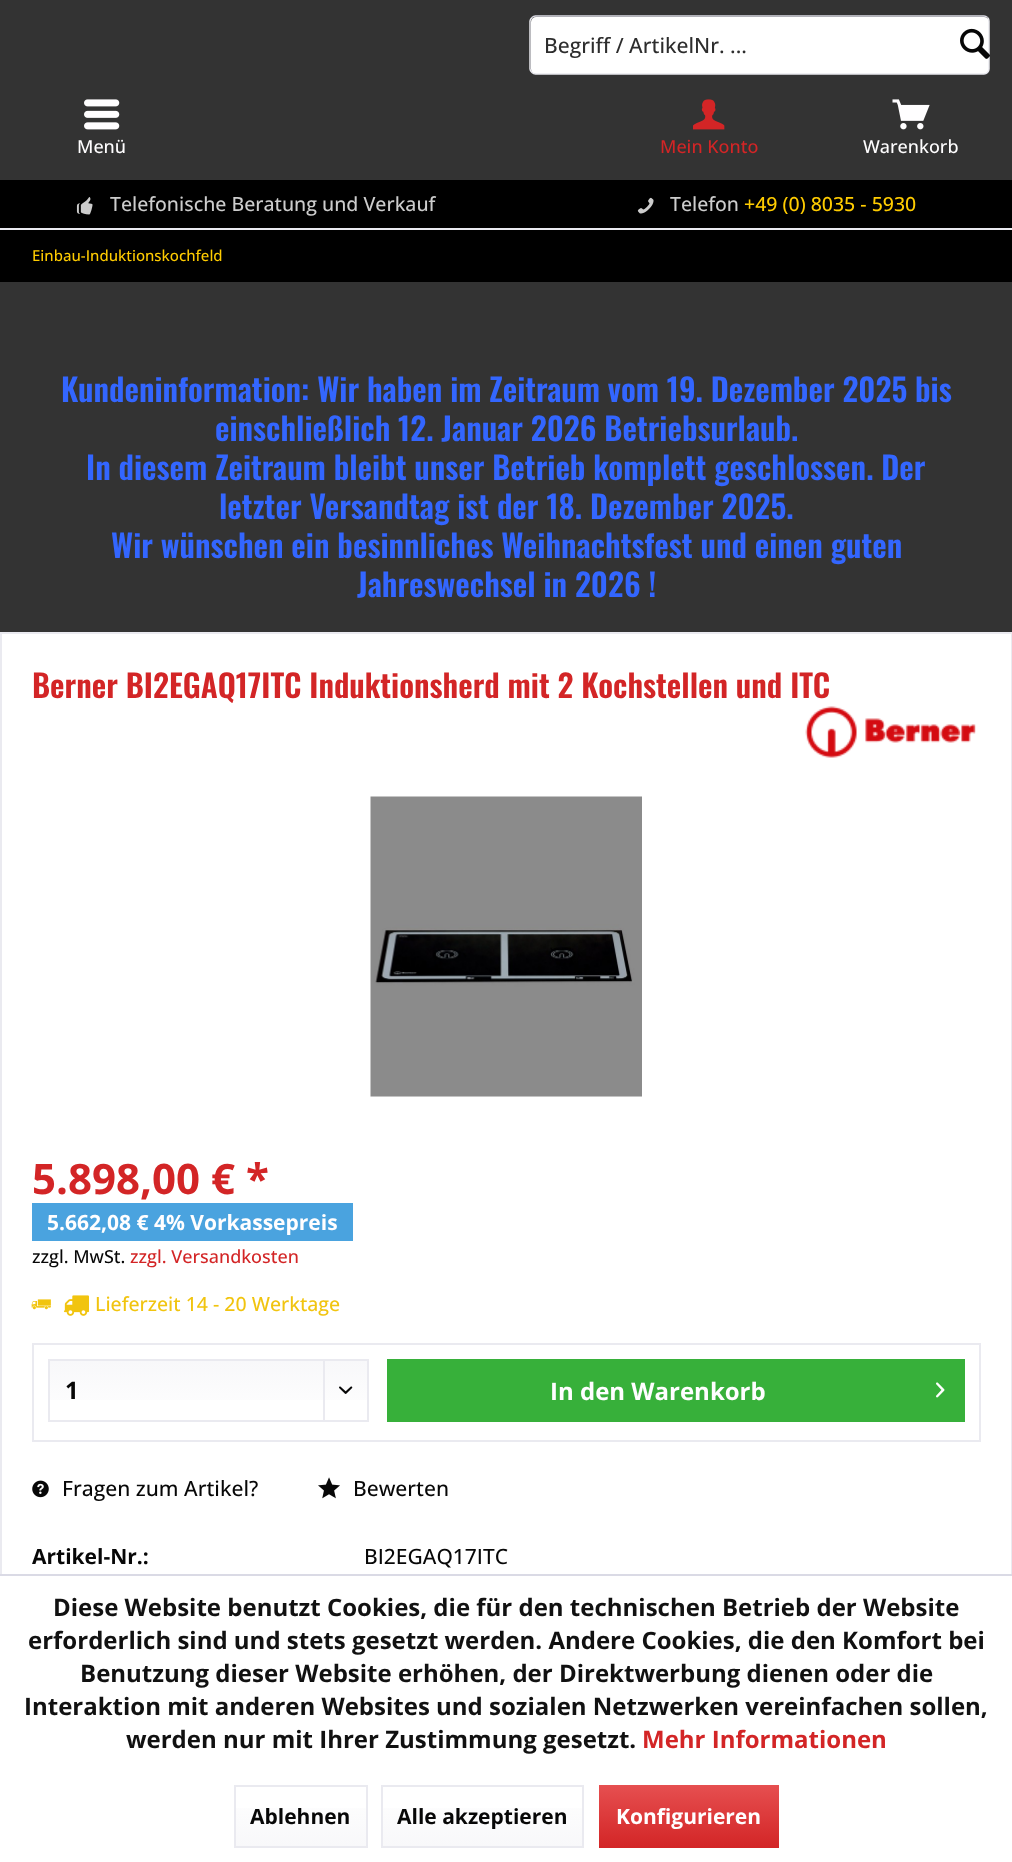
<!DOCTYPE html>
<meta charset="utf-8">
<style>body { margin: 0 } canvas { display: block }</style>
<canvas id="canvas" width="1012" height="1862"></canvas>
<img id="img1" src="img_01.png" hidden>
<img id="img2" src="img_02.png" hidden>
<img id="img3" src="img_03.png" hidden>
<img id="img4" src="img_04.png" hidden>
<img id="img5" src="img_05.png" hidden>
<img id="img6" src="img_06.png" hidden>
<img id="img7" src="img_07.png" hidden>
<img id="img8" src="img_08.png" hidden>
<img id="img9" src="img_09.png" hidden>
<img id="img10" src="img_10.png" hidden>
<img id="img11" src="img_11.png" hidden>
<img id="img12" src="img_12.png" hidden>
<img id="img13" src="img_13.png" hidden>
<img id="img14" src="img_14.png" hidden>
<script>
window.onload = function () {
	const canvas = document.getElementById("canvas");
	const ctx = canvas.getContext("2d");
	ctx.miterLimit = 4;
	ctx.fontKerning = "normal";
	function txt(s, x, y) {
		ctx.fillText(s, x, y);
	}
	function fill(x, y, w, h) {
		ctx.fillRect(x, y, w, h);
	}
	function round(x, y, w, h, r) {
		ctx.beginPath();
		ctx.roundRect(x, y, w, h, r);
		ctx.fill();
	}
	function img(id, x, y, w, h) {
		ctx.drawImage(document.getElementById(id), x, y, w, h);
	}
	let gradient;

	ctx.fillStyle = "#333333";
	fill(0, 0, 1012, 1862);
	ctx.fillStyle = "#FFFFFF";
	round(531, 17, 458, 57, 5);
	ctx.beginPath();
	ctx.moveTo(532, 17.5);
	ctx.bezierCurveTo(533, 16.5, 534, 16, 535.5, 16);
	ctx.lineTo(984, 16);
	ctx.bezierCurveTo(985.5, 16, 986.5, 16.5, 987.5, 17.5);
	ctx.strokeStyle = "#DBDBE5";
	ctx.lineWidth = 1.5;
	ctx.stroke();
	ctx.beginPath();
	ctx.moveTo(987.5, 17.5);
	ctx.bezierCurveTo(988.5, 18.5, 989, 19.5, 989, 21);
	ctx.lineTo(989, 69);
	ctx.bezierCurveTo(989, 70.5, 988.5, 71.5, 987.5, 72.5);
	ctx.bezierCurveTo(986.5, 73.5, 985.5, 74, 984, 74);
	ctx.lineTo(535.5, 74);
	ctx.bezierCurveTo(534, 74, 533, 73.5, 532, 72.5);
	ctx.bezierCurveTo(531, 71.5, 530, 70.5, 530, 69);
	ctx.lineTo(530, 21);
	ctx.bezierCurveTo(530, 19.5, 531, 18.5, 532, 17.5);
	ctx.strokeStyle = "#EAEAF0";
	ctx.stroke();
	img("img1", 960, 28, 30, 31);
	img("img2", 84, 99, 36, 31);
	img("img3", 693, 99, 32, 31);
	img("img4", 892, 99, 38, 31);
	ctx.fillStyle = "#000000";
	fill(0, 180, 1012, 48);
	img("img5", 76, 197, 17, 18);
	img("img6", 637, 197, 17, 17);
	fill(0, 230, 1012, 52);
	ctx.fillStyle = "#EAEAF0";
	fill(0, 228, 1012, 2);
	ctx.fillStyle = "#FFFFFF";
	fill(2, 634, 1009, 940);
	ctx.fillStyle = "#EAEAF0";
	fill(0, 632, 1012, 2);
	fill(1011, 632, 1, 942);
	fill(0, 632, 2, 942);
	img("img7", 805, 706, 171, 52);
	img("img8", 370, 796, 272, 301);
	ctx.fillStyle = "#4AA3DF";
	fill(32, 1203, 321, 38);
	img("img9", 31, 1299, 20, 11);
	img("img10", 63, 1295, 26, 21);
	ctx.lineWidth = 2;
	ctx.strokeRect(33, 1344, 947, 97);
	gradient = ctx.createLinearGradient(209, 1361, 209, 1421);
	gradient.addColorStop(0, "#F8F8FA");
	gradient.addColorStop(1, "#FFFFFF");
	ctx.fillStyle = gradient;
	fill(50, 1361, 317, 39);
	ctx.strokeRect(49, 1360, 319, 61);
	ctx.fillStyle = "#EAEAF0";
	fill(323, 1361, 2, 60);
	img("img11", 339, 1386, 14, 8);
	ctx.fillStyle = "#37B03A";
	fill(387, 1359, 578, 63);
	img("img12", 936, 1382, 9, 16);
	img("img13", 32, 1480, 17, 18);
	img("img14", 318, 1477, 22, 22);
	ctx.fillStyle = "#FFFFFF";
	fill(0, 1576, 1012, 286);
	ctx.fillStyle = "#DADAE5";
	fill(0, 1574, 1012, 2);
	gradient = ctx.createLinearGradient(301, 1787, 301, 1847);
	gradient.addColorStop(0, "#FFFFFF");
	gradient.addColorStop(1, "#F8F8FA");
	ctx.fillStyle = gradient;
	fill(236, 1808, 130, 38);
	ctx.strokeRect(235, 1786, 132, 61);
	gradient = ctx.createLinearGradient(482, 1787, 482, 1847);
	gradient.addColorStop(0, "#FFFFFF");
	gradient.addColorStop(1, "#F8F8FA");
	ctx.fillStyle = gradient;
	fill(383, 1808, 199, 38);
	ctx.strokeRect(382, 1786, 201, 61);
	gradient = ctx.createLinearGradient(689, 1785, 689, 1848);
	gradient.addColorStop(0, "#E64F50");
	gradient.addColorStop(1, "#D32526");
	ctx.fillStyle = gradient;
	fill(599, 1785, 180, 63);
	ctx.font = "500 21px Open Sans";
	ctx.fillStyle = "#2D2D2D";
	txt("Begriff / ArtikelNr. ...", 544, 53);
	ctx.font = "500 18px Open Sans";
	ctx.fillStyle = "#FFFEFF";
	txt("Menü", 77, 153);
	ctx.fillStyle = "#D32526";
	txt("Mein Konto", 660, 153);
	ctx.fillStyle = "#FFFEFF";
	txt("Warenkorb", 863, 153);
	ctx.font = "500 19.5px Open Sans";
	ctx.fillStyle = "#CCCCCC";
	txt("Telefonische Beratung und Verkauf", 110, 211);
	txt("Telefon", 670, 211);
	ctx.fillStyle = "#FFCC00";
	txt("+49 (0) 8035 - 5930", 744, 211);
	ctx.font = "500 15px Open Sans";
	txt("Einbau-Induktionskochfeld", 32, 261);
	ctx.font = "600 31.5px Oswald";
	ctx.fillStyle = "#3366FF";
	txt("Kundeninformation: Wir haben im Zeitraum vom 19. Dezember 2025 bis", 61, 402);
	txt("einschließlich 12. Januar 2026 Betriebsurlaub.", 215, 441);
	txt("In diesem Zeitraum bleibt unser Betrieb komplett geschlossen. Der", 86, 480);
	txt("letzter Versandtag ist der 18. Dezember 2025.", 219, 519);
	txt("Wir wünschen ein besinnliches Weihnachtsfest und einen guten", 111, 558);
	txt("Jahreswechsel in 2026 !", 357, 597);
	ctx.fillStyle = "#D32526";
	txt("Berner BI2EGAQ17ITC Induktionsherd mit 2 Kochstellen und ITC", 32, 698);
	ctx.font = "bold 42px Open Sans";
	txt("5.898,00 € *", 32, 1194);
	ctx.font = "bold 21px Open Sans";
	ctx.fillStyle = "#FFFEFF";
	txt("5.662,08 € 4% Vorkassepreis", 47, 1230);
	ctx.font = "500 18px Open Sans";
	ctx.fillStyle = "#070707";
	txt("zzgl. MwSt.", 32, 1263);
	ctx.fillStyle = "#D32526";
	txt("zzgl. Versandkosten", 130, 1263);
	ctx.font = "500 19.5px Open Sans";
	ctx.fillStyle = "#F1C40F";
	txt("Lieferzeit 14 - 20 Werktage", 95, 1311);
	ctx.font = "bold 24px Open Sans";
	ctx.fillStyle = "#070707";
	txt("1", 65, 1399);
	ctx.fillStyle = "#FFFEFF";
	txt("In den Warenkorb", 550, 1400);
	ctx.font = "500 21px Open Sans";
	ctx.fillStyle = "#070707";
	txt("Fragen zum Artikel?", 62, 1496);
	txt("Bewerten", 353, 1496);
	ctx.font = "bold 21px Open Sans";
	txt("Artikel-Nr.:", 32, 1564);
	ctx.font = "500 21px Open Sans";
	txt("BI2EGAQ17ITC", 364, 1564);
	ctx.font = "bold 24px Open Sans";
	ctx.fillStyle = "#111111";
	txt("Diese Website benutzt Cookies, die für den technischen Betrieb der Website", 53, 1616);
	txt("erforderlich sind und stets gesetzt werden. Andere Cookies, die den Komfort bei", 28, 1649);
	txt("Benutzung dieser Website erhöhen, der Direktwerbung dienen oder die", 80, 1682);
	txt("Interaktion mit anderen Websites und sozialen Netzwerken vereinfachen sollen,", 24, 1715);
	txt("werden nur mit Ihrer Zustimmung gesetzt.", 126, 1748);
	ctx.fillStyle = "#D32526";
	txt("Mehr Informationen", 642, 1748);
	ctx.font = "bold 21px Open Sans";
	ctx.fillStyle = "#070707";
	txt("Ablehnen", 250, 1824);
	txt("Alle akzeptieren", 397, 1824);
	ctx.fillStyle = "#FFFEFF";
	txt("Konfigurieren", 616, 1824);
};
</script>
